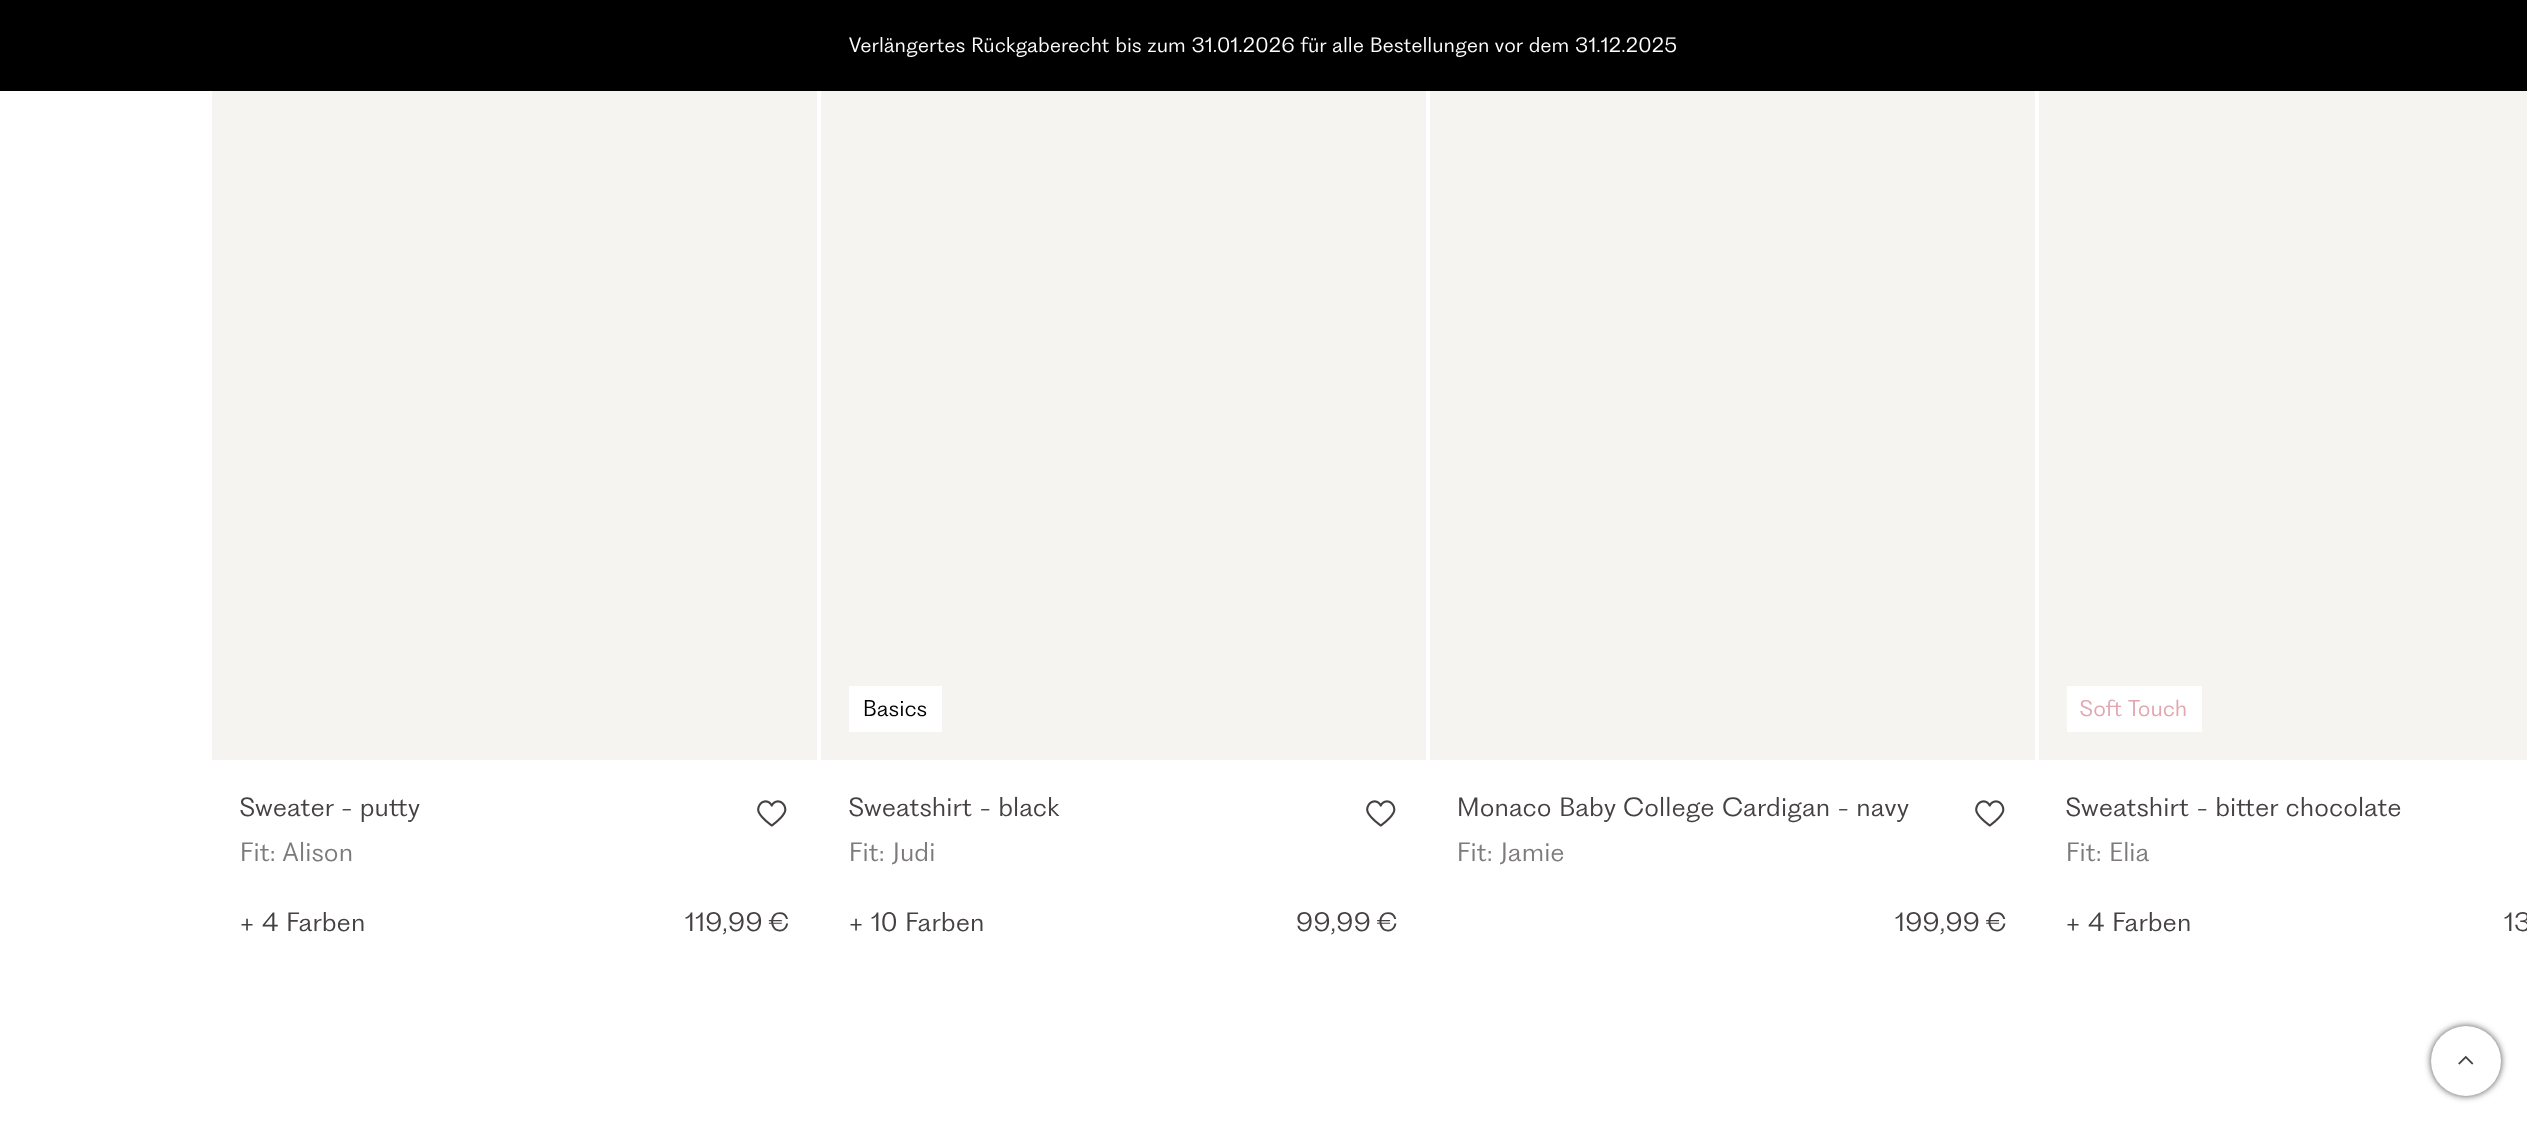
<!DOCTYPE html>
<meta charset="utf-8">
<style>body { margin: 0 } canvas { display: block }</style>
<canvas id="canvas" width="2527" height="1121"></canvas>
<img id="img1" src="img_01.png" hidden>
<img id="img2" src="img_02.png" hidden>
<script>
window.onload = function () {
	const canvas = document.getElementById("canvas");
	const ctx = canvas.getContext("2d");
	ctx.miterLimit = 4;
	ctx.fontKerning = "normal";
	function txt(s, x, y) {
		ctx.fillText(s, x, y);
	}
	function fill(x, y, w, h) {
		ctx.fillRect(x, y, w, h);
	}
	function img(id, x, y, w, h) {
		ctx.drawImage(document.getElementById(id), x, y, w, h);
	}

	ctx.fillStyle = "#FFFFFF";
	fill(0, 0, 2527, 1121);
	ctx.fillStyle = "#000000";
	fill(0, 0, 2527, 91);
	ctx.fillStyle = "#F5F4F0";
	fill(212, 91, 605, 669);
	img("img1", 757, 800, 30, 27);
	fill(821, 91, 605, 669);
	ctx.fillStyle = "#FFFFFF";
	fill(849, 686, 93, 46);
	img("img1", 1366, 800, 30, 27);
	ctx.fillStyle = "#F5F4F0";
	fill(1430, 91, 605, 669);
	img("img1", 1975, 800, 30, 27);
	fill(2039, 91, 488, 669);
	ctx.fillStyle = "#FFFFFF";
	fill(2067, 686, 135, 46);
	ctx.fillStyle = "#4A4A4A";
	ctx.filter = "blur(3.5px)";
	ctx.beginPath();
	ctx.roundRect(2431, 1026, 70, 70, 35);
	ctx.fill();
	ctx.filter = "none";
	ctx.fillStyle = "#FFFFFF";
	ctx.beginPath();
	ctx.arc(2466, 1061, 35, 0, Math.PI * 2);
	ctx.fill();
	img("img2", 2458, 1055, 16, 10);
	ctx.letterSpacing = "0.48px";
	ctx.font = "300 19.25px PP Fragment";
	txt("Verlängertes Rückgaberecht bis zum 31.01.2026 für alle Bestellungen vor dem 31.12.2025", 849, 52);
	ctx.letterSpacing = "0.6px";
	ctx.font = "300 24.5px PP Fragment";
	ctx.fillStyle = "#454142";
	txt("Sweater - putty", 240, 816);
	ctx.fillStyle = "#7D7A7B";
	txt("Fit: Alison", 240, 861);
	ctx.fillStyle = "#454142";
	txt("+ 4 Farben", 240, 931);
	txt("119,99 €", 685, 931);
	ctx.letterSpacing = "0.48px";
	ctx.font = "300 21px PP Fragment";
	ctx.fillStyle = "#000000";
	txt("Basics", 863, 716);
	ctx.letterSpacing = "0.6px";
	ctx.font = "300 24.5px PP Fragment";
	ctx.fillStyle = "#454142";
	txt("Sweatshirt - black", 849, 816);
	ctx.fillStyle = "#7D7A7B";
	txt("Fit: Judi", 849, 861);
	ctx.fillStyle = "#454142";
	txt("+ 10 Farben", 849, 931);
	txt("99,99 €", 1296, 931);
	txt("Monaco Baby College Cardigan - navy", 1457, 816);
	ctx.fillStyle = "#7D7A7B";
	txt("Fit: Jamie", 1457, 861);
	ctx.fillStyle = "#454142";
	txt("199,99 €", 1895, 931);
	ctx.letterSpacing = "0.48px";
	ctx.font = "300 21px PP Fragment";
	ctx.fillStyle = "#E1A6AF";
	txt("Soft Touch", 2080, 716);
	ctx.letterSpacing = "0.6px";
	ctx.font = "300 24.5px PP Fragment";
	ctx.fillStyle = "#454142";
	txt("Sweatshirt - bitter chocolate", 2066, 816);
	ctx.fillStyle = "#7D7A7B";
	txt("Fit: Elia", 2066, 861);
	ctx.fillStyle = "#454142";
	txt("+ 4 Farben", 2066, 931);
	txt("13", 2504, 931);
};
</script>
